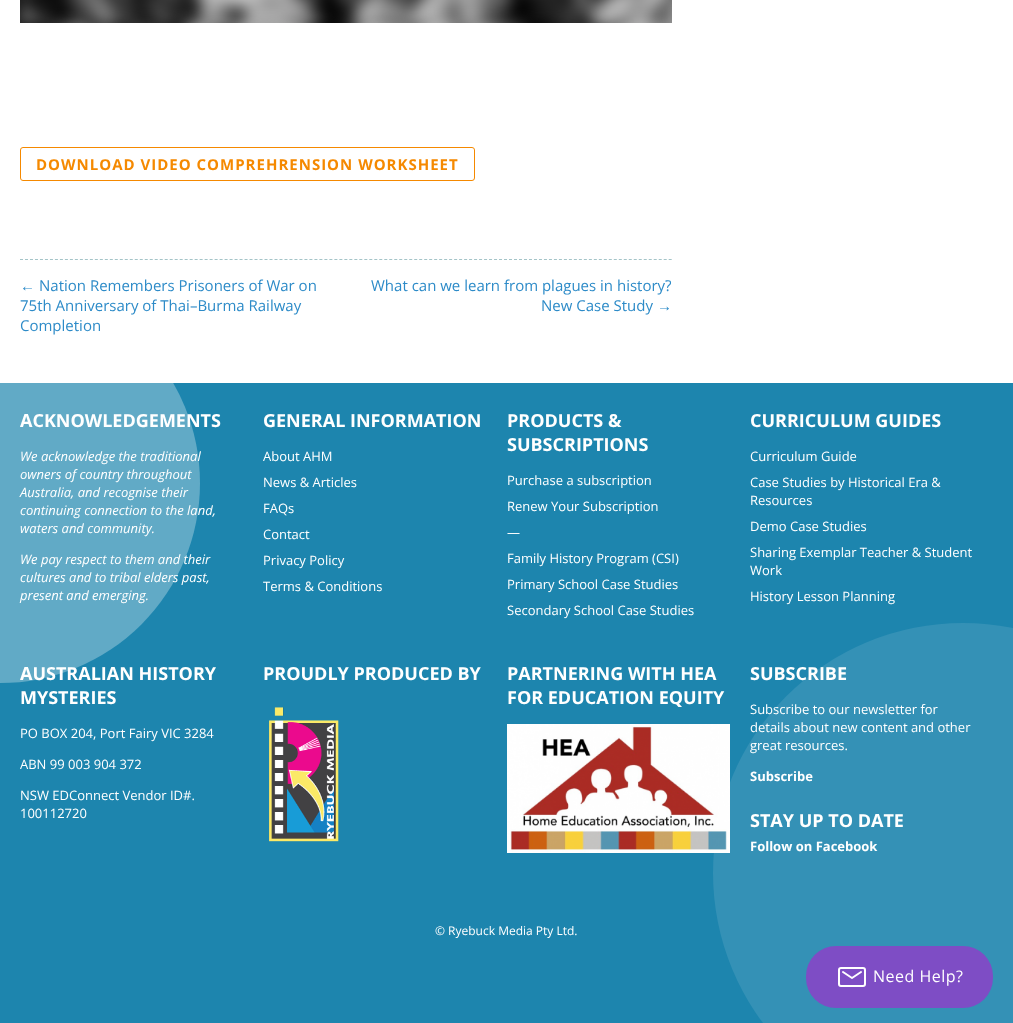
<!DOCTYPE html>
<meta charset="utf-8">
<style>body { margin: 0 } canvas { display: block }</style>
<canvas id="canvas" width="1013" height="1023"></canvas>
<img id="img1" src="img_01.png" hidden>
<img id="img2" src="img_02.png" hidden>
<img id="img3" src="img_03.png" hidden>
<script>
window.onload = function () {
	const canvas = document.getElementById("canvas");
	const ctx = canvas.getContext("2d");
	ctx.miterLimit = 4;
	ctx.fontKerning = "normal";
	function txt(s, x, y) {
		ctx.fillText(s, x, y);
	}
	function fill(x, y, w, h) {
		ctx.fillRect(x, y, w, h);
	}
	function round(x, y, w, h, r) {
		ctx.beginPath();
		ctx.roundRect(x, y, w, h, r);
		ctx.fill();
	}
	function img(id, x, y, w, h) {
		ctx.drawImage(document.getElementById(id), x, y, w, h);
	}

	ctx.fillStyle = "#FFFFFF";
	fill(0, 0, 1013, 1023);
	img("img1", 20, 0, 652, 23);
	ctx.beginPath();
	ctx.roundRect(20.5, 147.5, 454, 33, 2.5);
	ctx.strokeStyle = "#F58900";
	ctx.stroke();
	ctx.beginPath();
	ctx.moveTo(20, 259.5);
	ctx.lineTo(672, 259.5);
	ctx.strokeStyle = "#A4C4C8";
	ctx.setLineDash([3, 1.99]);
	ctx.stroke();
	ctx.fillStyle = "#1D85AE";
	fill(0, 383, 1013, 640);
	img("img2", 269, 707, 70, 135);
	ctx.fillStyle = "#3491B6";
	ctx.beginPath();
	ctx.arc(963, 873, 250, 0, Math.PI * 2);
	ctx.fill();
	img("img3", 507, 724, 223, 129);
	ctx.fillStyle = "#7E4DC5";
	round(806, 946, 187, 62, 30);
	ctx.beginPath();
	ctx.roundRect(839, 968, 26, 18, 2);
	ctx.strokeStyle = "#FFFFFF";
	ctx.lineWidth = 2;
	ctx.setLineDash([]);
	ctx.stroke();
	ctx.beginPath();
	ctx.moveTo(843, 972);
	ctx.lineTo(852, 978);
	ctx.lineTo(861, 972);
	ctx.lineCap = "round";
	ctx.lineJoin = "round";
	ctx.stroke();
	ctx.letterSpacing = "1px";
	ctx.font = "bold 15px Open Sans";
	ctx.fillStyle = "#F58900";
	txt("DOWNLOAD VIDEO COMPREHRENSION WORKSHEET", 36, 170);
	ctx.letterSpacing = "0px";
	ctx.font = "15px Liberation Sans";
	ctx.fillStyle = "#2D8BC8";
	txt("←", 20, 291);
	ctx.font = "15px Open Sans";
	txt("Nation Remembers Prisoners of War on", 39, 291);
	txt("75th Anniversary of Thai–Burma Railway", 20, 311);
	txt("Completion", 20, 331);
	txt("What can we learn from plagues in history?", 371, 291);
	txt("New Case Study", 541, 311);
	ctx.font = "15px Liberation Sans";
	txt("→", 657, 311);
	ctx.save();
	ctx.beginPath();
	ctx.rect(0, 383, 1013, 640);
	ctx.clip();
	ctx.fillStyle = "#61AAC6";
	ctx.beginPath();
	ctx.arc(0, 483, 200, 0, Math.PI * 2);
	ctx.fill();
	ctx.restore();
	ctx.font = "bold 18px Open Sans";
	ctx.fillStyle = "#FFFFFF";
	txt("ACKNOWLEDGEMENTS", 20, 427);
	ctx.font = "italic 13px Open Sans";
	txt("We acknowledge the traditional", 20, 461);
	txt("owners of country throughout", 20, 479);
	txt("Australia, and recognise their", 20, 497);
	txt("continuing connection to the land,", 20, 515);
	txt("waters and community.", 20, 533);
	txt("We pay respect to them and their", 20, 564);
	txt("cultures and to tribal elders past,", 20, 582);
	txt("present and emerging.", 20, 600);
	ctx.font = "bold 18px Open Sans";
	txt("GENERAL INFORMATION", 263, 427);
	ctx.font = "13px Open Sans";
	txt("About AHM", 263, 461);
	txt("News & Articles", 263, 487);
	txt("FAQs", 263, 513);
	txt("Contact", 263, 539);
	txt("Privacy Policy", 263, 565);
	txt("Terms & Conditions", 263, 591);
	ctx.font = "bold 18px Open Sans";
	txt("PRODUCTS &", 507, 427);
	txt("SUBSCRIPTIONS", 507, 451);
	ctx.font = "13px Open Sans";
	txt("Purchase a subscription", 507, 485);
	txt("Renew Your Subscription", 507, 511);
	txt("—", 507, 537);
	txt("Family History Program (CSI)", 507, 563);
	txt("Primary School Case Studies", 507, 589);
	txt("Secondary School Case Studies", 507, 615);
	ctx.font = "bold 18px Open Sans";
	txt("CURRICULUM GUIDES", 750, 427);
	ctx.font = "13px Open Sans";
	txt("Curriculum Guide", 750, 461);
	txt("Case Studies by Historical Era &", 750, 487);
	txt("Resources", 750, 505);
	txt("Demo Case Studies", 750, 531);
	txt("Sharing Exemplar Teacher & Student", 750, 557);
	txt("Work", 750, 575);
	txt("History Lesson Planning", 750, 601);
	ctx.font = "bold 18px Open Sans";
	txt("AUSTRALIAN HISTORY", 20, 680);
	txt("MYSTERIES", 20, 704);
	ctx.font = "13px Open Sans";
	txt("PO BOX 204, Port Fairy VIC 3284", 20, 738);
	txt("ABN 99 003 904 372", 20, 769);
	txt("NSW EDConnect Vendor ID#.", 20, 800);
	txt("100112720", 20, 818);
	ctx.font = "bold 18px Open Sans";
	txt("PROUDLY PRODUCED BY", 263, 680);
	txt("PARTNERING WITH HEA", 507, 680);
	txt("FOR EDUCATION EQUITY", 507, 704);
	txt("SUBSCRIBE", 750, 680);
	ctx.font = "13px Open Sans";
	txt("Subscribe to our newsletter for", 750, 714);
	txt("details about new content and other", 750, 732);
	txt("great resources.", 750, 750);
	ctx.font = "bold 13px Open Sans";
	txt("Subscribe", 750, 781);
	ctx.font = "bold 18px Open Sans";
	txt("STAY UP TO DATE", 750, 827);
	ctx.font = "bold 13px Open Sans";
	txt("Follow on Facebook", 750, 851);
	ctx.font = "12px Open Sans";
	txt("© Ryebuck Media Pty Ltd.", 435, 935);
	ctx.letterSpacing = "0.5px";
	ctx.font = "16px Open Sans";
	txt("Need Help?", 873, 982);
};
</script>
